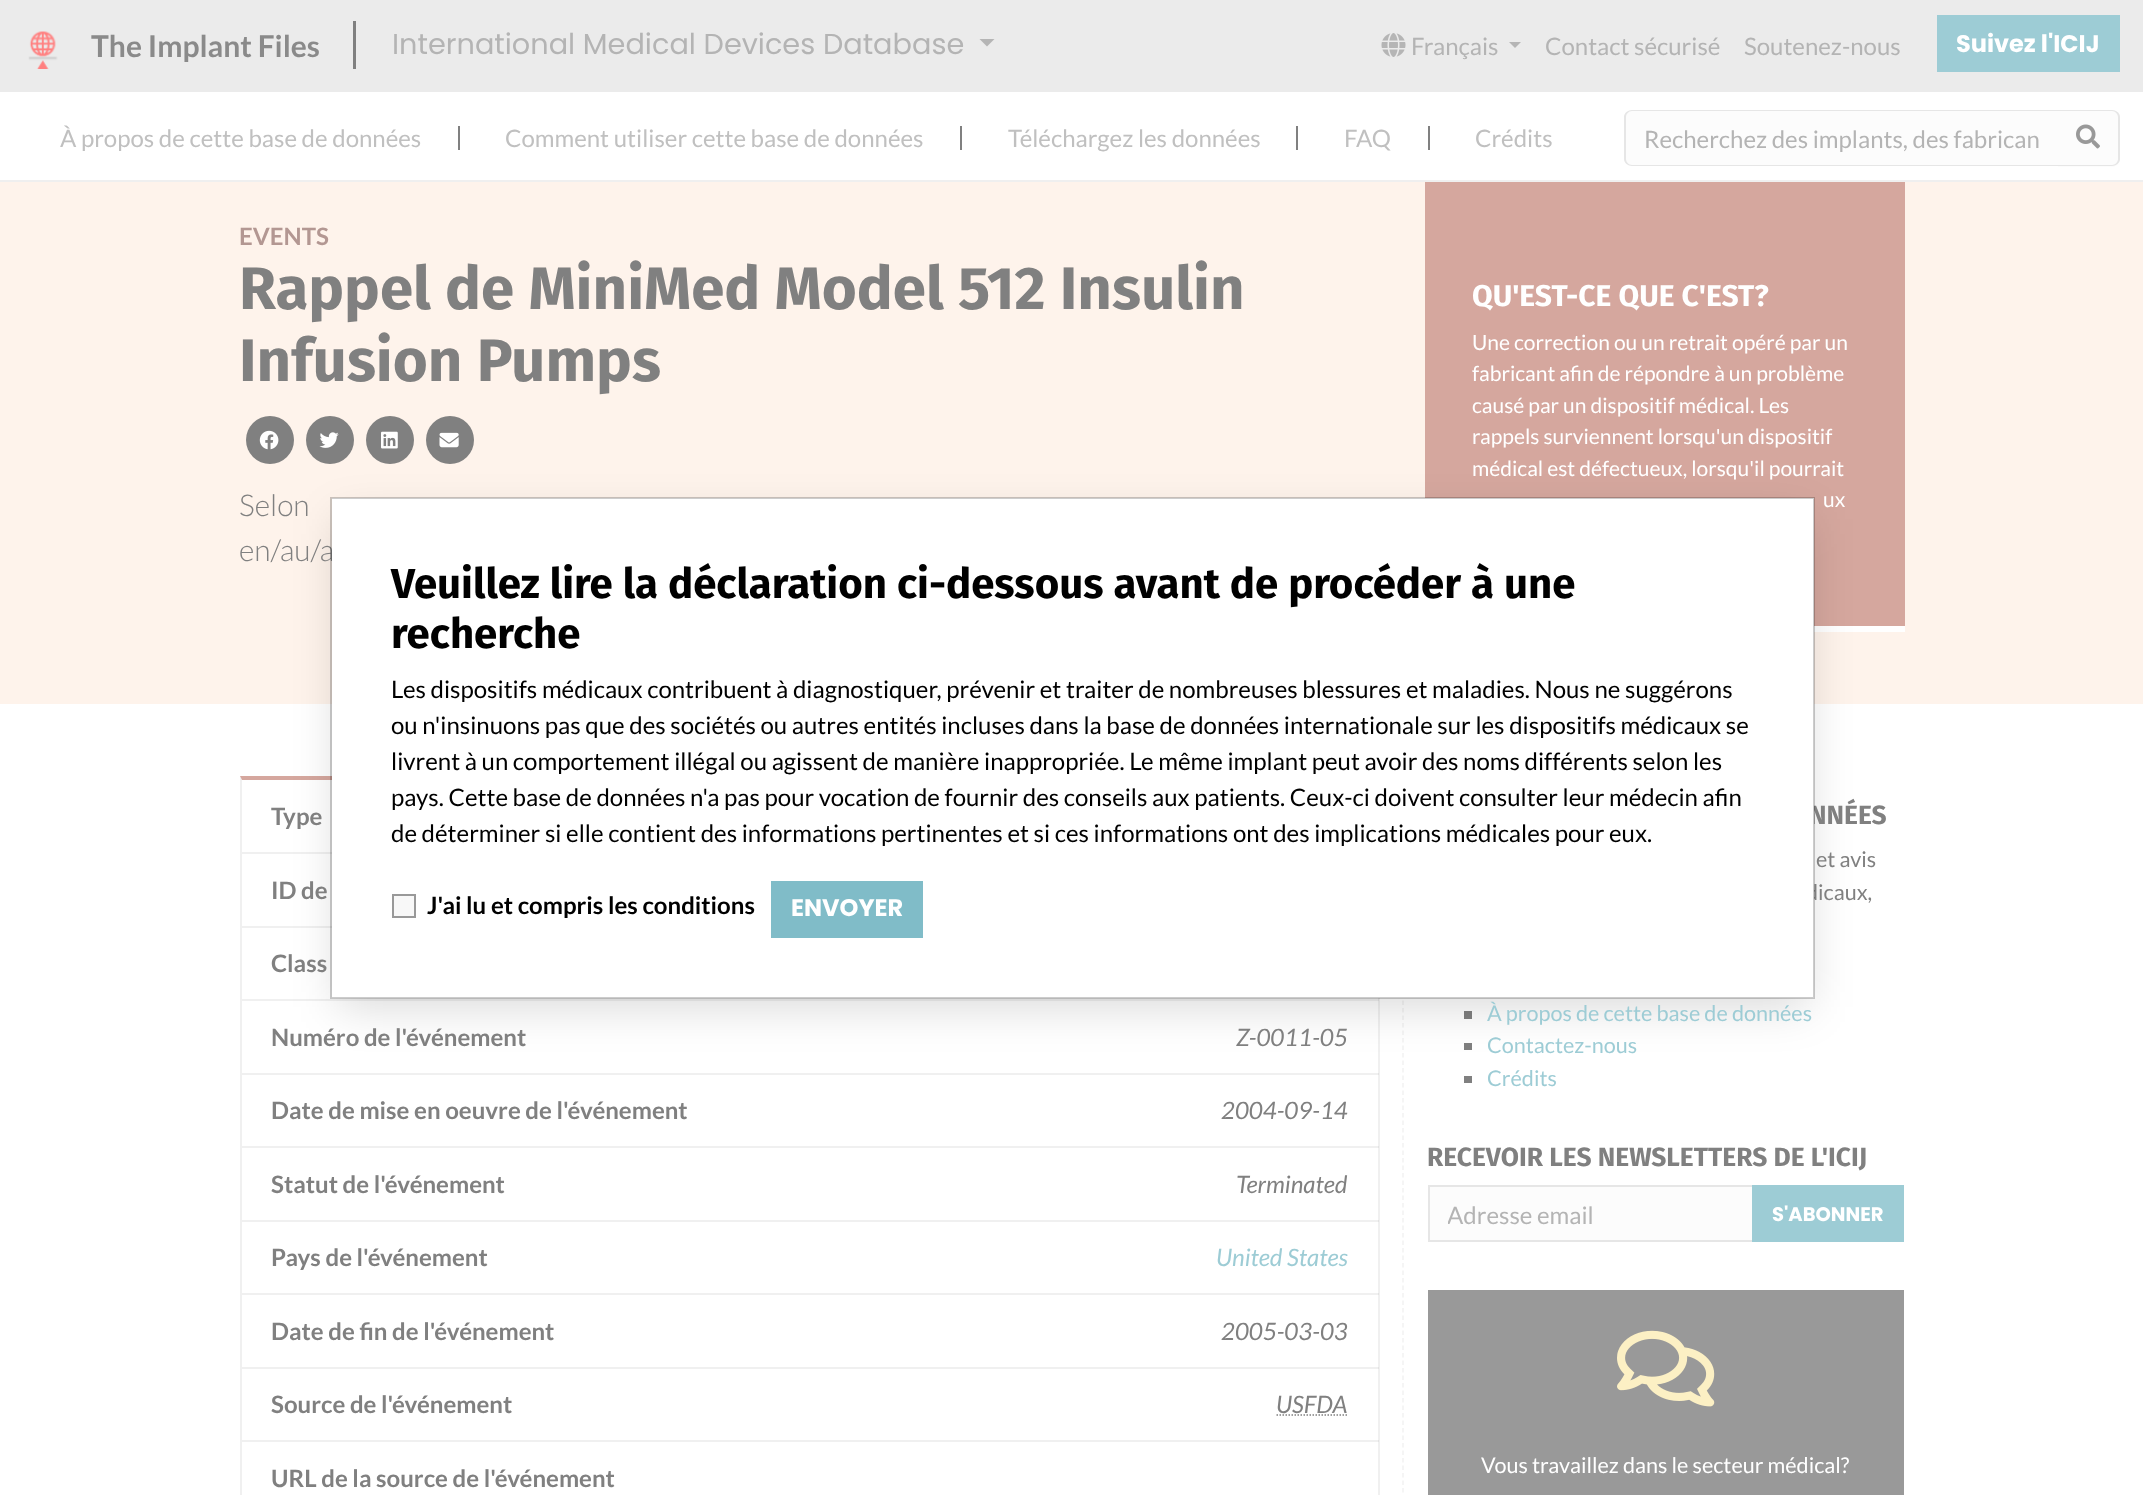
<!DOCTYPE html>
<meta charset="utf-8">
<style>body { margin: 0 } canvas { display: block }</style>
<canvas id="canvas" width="2143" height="1495"></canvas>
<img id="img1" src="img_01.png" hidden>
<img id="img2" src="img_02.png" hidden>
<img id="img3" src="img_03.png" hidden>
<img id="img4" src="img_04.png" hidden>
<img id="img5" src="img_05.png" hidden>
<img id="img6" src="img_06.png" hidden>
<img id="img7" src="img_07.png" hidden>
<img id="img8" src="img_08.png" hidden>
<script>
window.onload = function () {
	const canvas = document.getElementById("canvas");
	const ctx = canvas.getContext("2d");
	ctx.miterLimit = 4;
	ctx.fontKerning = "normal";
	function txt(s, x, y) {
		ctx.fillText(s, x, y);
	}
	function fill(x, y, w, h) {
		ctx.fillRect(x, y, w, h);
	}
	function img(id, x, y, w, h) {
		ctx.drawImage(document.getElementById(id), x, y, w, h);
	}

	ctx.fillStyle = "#FFFFFF";
	fill(0, 0, 2143, 1495);
	ctx.fillStyle = "rgba(230, 230, 230, 0.8)";
	fill(0, 0, 2143, 92);
	img("img1", 28, 31, 30, 38);
	ctx.fillStyle = "#808080";
	fill(353, 21, 3, 48);
	ctx.fillStyle = "#B5B5B5";
	ctx.beginPath();
	ctx.moveTo(979.5, 39);
	ctx.lineTo(994.5, 39);
	ctx.lineTo(987, 46.5);
	ctx.closePath();
	ctx.fill();
	img("img2", 1381, 33, 25, 24);
	ctx.beginPath();
	ctx.moveTo(1509, 42);
	ctx.lineTo(1521, 42);
	ctx.lineTo(1515, 48);
	ctx.closePath();
	ctx.fill();
	ctx.fillStyle = "#9DCCD5";
	fill(1937, 15, 183, 57);
	ctx.fillStyle = "#EFEFEF";
	fill(0, 180, 2143, 2);
	ctx.fillStyle = "#808080";
	fill(458, 126, 2, 24);
	fill(960, 126, 2, 24);
	fill(1296, 126, 2, 24);
	fill(1428, 126, 2, 24);
	ctx.fillStyle = "#FCFCFC";
	ctx.beginPath();
	ctx.roundRect(2058, 110, 62, 57, [0, 8, 8, 0]);
	ctx.fill();
	ctx.fillStyle = "#E6E6E6";
	ctx.beginPath();
	ctx.moveTo(2058, 110);
	ctx.lineTo(2112, 110);
	ctx.bezierCurveTo(2116, 110, 2120, 113, 2120, 117);
	ctx.lineTo(2120, 159);
	ctx.bezierCurveTo(2120, 163, 2116, 166, 2112, 166);
	ctx.lineTo(2058, 166);
	ctx.closePath();
	ctx.moveTo(2058, 111);
	ctx.lineTo(2112, 111);
	ctx.bezierCurveTo(2115, 111, 2118, 114, 2118, 117);
	ctx.lineTo(2118, 159);
	ctx.bezierCurveTo(2118, 162, 2115, 165, 2112, 165);
	ctx.lineTo(2058, 165);
	ctx.closePath();
	ctx.fill("evenodd");
	ctx.fillStyle = "#FCFCFC";
	ctx.beginPath();
	ctx.roundRect(1626, 111, 434, 54, [6, 0, 0, 6]);
	ctx.fill();
	ctx.fillStyle = "#E6E6E6";
	ctx.beginPath();
	ctx.moveTo(1632, 110);
	ctx.lineTo(2060, 110);
	ctx.lineTo(2060, 166);
	ctx.lineTo(1632, 166);
	ctx.bezierCurveTo(1628, 166, 1624, 163, 1624, 159);
	ctx.lineTo(1624, 117);
	ctx.bezierCurveTo(1624, 113, 1628, 110, 1632, 110);
	ctx.closePath();
	ctx.moveTo(1632, 111);
	ctx.lineTo(2060, 111);
	ctx.lineTo(2060, 165);
	ctx.lineTo(1632, 165);
	ctx.bezierCurveTo(1629, 165, 1626, 162, 1626, 159);
	ctx.lineTo(1626, 117);
	ctx.bezierCurveTo(1626, 114, 1629, 111, 1632, 111);
	ctx.closePath();
	ctx.fill("evenodd");
	img("img3", 2076, 124, 24, 25);
	ctx.fillStyle = "#FEF3EB";
	fill(0, 182, 2143, 522);
	ctx.fillStyle = "#808080";
	ctx.beginPath();
	ctx.arc(270, 440, 24, 0, Math.PI * 2);
	ctx.fill();
	img("img4", 259, 430, 20, 20);
	ctx.beginPath();
	ctx.arc(330, 440, 24, 0, Math.PI * 2);
	ctx.fill();
	img("img5", 319, 432, 20, 16);
	ctx.beginPath();
	ctx.arc(390, 440, 24, 0, Math.PI * 2);
	ctx.fill();
	img("img6", 381, 431, 17, 18);
	ctx.beginPath();
	ctx.arc(450, 440, 24, 0, Math.PI * 2);
	ctx.fill();
	img("img7", 439, 432, 20, 16);
	ctx.fillStyle = "#D5A79E";
	fill(1425, 182, 480, 444);
	ctx.fillStyle = "#FFFFFF";
	fill(1814, 626, 91, 6);
	ctx.fillStyle = "#D5A79E";
	ctx.beginPath();
	ctx.moveTo(240, 776);
	ctx.lineTo(1380, 776);
	ctx.lineTo(1378, 780);
	ctx.lineTo(242, 780);
	ctx.closePath();
	ctx.fill();
	ctx.fillStyle = "rgba(128, 128, 128, 0.12)";
	ctx.beginPath();
	ctx.moveTo(1380, 776);
	ctx.lineTo(1380, 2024);
	ctx.lineTo(1378, 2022);
	ctx.lineTo(1378, 780);
	ctx.closePath();
	ctx.fill();
	ctx.beginPath();
	ctx.moveTo(240, 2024);
	ctx.lineTo(240, 776);
	ctx.lineTo(242, 780);
	ctx.lineTo(242, 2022);
	ctx.closePath();
	ctx.fill();
	fill(242, 852, 90, 2);
	fill(242, 926, 90, 2);
	fill(242, 999, 1137, 2);
	fill(242, 1073, 1137, 2);
	fill(242, 1146, 1137, 2);
	fill(242, 1220, 1137, 2);
	fill(242, 1293, 1137, 2);
	fill(242, 1367, 1137, 2);
	fill(242, 1440, 1137, 2);
	ctx.beginPath();
	ctx.moveTo(1276.5, 1415);
	ctx.lineTo(1348, 1415);
	ctx.strokeStyle = "#808080";
	ctx.lineWidth = 1.5;
	ctx.setLineDash([1.5, 1.5]);
	ctx.stroke();
	ctx.beginPath();
	ctx.moveTo(1403, 775.5);
	ctx.lineTo(1403, 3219);
	ctx.strokeStyle = "#F2F2F2";
	ctx.setLineDash([4.5, 3]);
	ctx.stroke();
	ctx.fillStyle = "#808080";
	fill(1464, 1011, 8, 8);
	fill(1464, 1043, 8, 7);
	fill(1464, 1076, 8, 7);
	ctx.fillStyle = "#FCFCFC";
	ctx.beginPath();
	ctx.rect(1429, 1186, 324, 55);
	ctx.fill();
	ctx.strokeStyle = "#E6E6E6";
	ctx.lineWidth = 2;
	ctx.setLineDash([]);
	ctx.stroke();
	ctx.fillStyle = "#9DCCD5";
	fill(1752, 1185, 152, 57);
	ctx.fillStyle = "#999999";
	fill(1428, 1290, 476, 205);
	img("img8", 1617, 1330, 98, 77);
	ctx.fillStyle = "rgba(0, 0, 0, 0.15)";
	ctx.filter = "blur(22.5px)";
	ctx.beginPath();
	ctx.rect(338, 519, 1470, 488);
	ctx.fill();
	ctx.filter = "none";
	ctx.font = "bold 30px Lato";
	ctx.fillStyle = "#8A8A8A";
	txt("The Implant Files", 91, 57);
	ctx.font = "28.75px Poppins";
	ctx.fillStyle = "#B4B4B4";
	txt("International Medical Devices Database", 392, 54);
	ctx.font = "24px Lato";
	txt("Français", 1411, 55);
	txt("Contact sécurisé", 1545, 55);
	txt("Soutenez-nous", 1744, 55);
	ctx.font = "bold 24px Poppins";
	ctx.fillStyle = "#FFFFFF";
	txt("Suivez l'ICIJ", 1956, 52);
	ctx.font = "24px Lato";
	ctx.fillStyle = "#C0C0C0";
	txt("À propos de cette base de données", 60, 147);
	txt("Comment utiliser cette base de données", 505, 147);
	txt("Téléchargez les données", 1008, 147);
	txt("FAQ", 1344, 147);
	txt("Crédits", 1475, 147);
	ctx.fillStyle = "#B4B4B4";
	txt("Recherchez des implants, des fabrican", 1644, 148);
	ctx.font = "bold 24px Lato";
	ctx.fillStyle = "#B39792";
	txt("EVENTS", 239, 245);
	ctx.font = "bold 60px Fira Sans";
	ctx.fillStyle = "#808080";
	txt("Rappel de MiniMed Model 512 Insulin", 239, 309);
	txt("Infusion Pumps", 239, 381);
	ctx.font = "300 30px Lato";
	txt("Selon", 239, 516);
	txt("en/au/a", 239, 561);
	ctx.font = "bold 30px Fira Sans";
	ctx.fillStyle = "#FFFFFF";
	txt("QU'EST-CE QUE C'EST?", 1472, 306);
	ctx.font = "21px Lato";
	txt("Une correction ou un retrait opéré par un", 1472, 350);
	txt("fabricant afin de répondre à un problème", 1472, 381);
	txt("causé par un dispositif médical. Les", 1472, 413);
	txt("rappels surviennent lorsqu'un dispositif", 1472, 444);
	txt("médical est défectueux, lorsqu'il pourrait", 1472, 476);
	txt("ux", 1823, 507);
	ctx.font = "bold 24px Lato";
	ctx.fillStyle = "#808080";
	txt("Type", 271, 825);
	txt("ID de", 271, 899);
	txt("Class", 271, 972);
	txt("Numéro de l'événement", 271, 1046);
	ctx.font = "italic 24px Lato";
	txt("Z-0011-05", 1236, 1046);
	ctx.font = "bold 24px Lato";
	txt("Date de mise en oeuvre de l'événement", 271, 1119);
	ctx.font = "italic 24px Lato";
	txt("2004-09-14", 1221, 1119);
	ctx.font = "bold 24px Lato";
	txt("Statut de l'événement", 271, 1193);
	ctx.font = "italic 24px Lato";
	txt("Terminated", 1236, 1193);
	ctx.font = "bold 24px Lato";
	txt("Pays de l'événement", 271, 1266);
	ctx.font = "italic 24px Lato";
	ctx.fillStyle = "#9DCCD5";
	txt("United States", 1216, 1266);
	ctx.font = "bold 24px Lato";
	ctx.fillStyle = "#808080";
	txt("Date de fin de l'événement", 271, 1340);
	ctx.font = "italic 24px Lato";
	txt("2005-03-03", 1221, 1340);
	ctx.font = "bold 24px Lato";
	txt("Source de l'événement", 271, 1413);
	ctx.font = "italic 24px Lato";
	txt("USFDA", 1276, 1413);
	ctx.font = "bold 24px Lato";
	txt("URL de la source de l'événement", 271, 1487);
	ctx.font = "bold 26.4px Fira Sans";
	txt("NNÉES", 1809, 824);
	ctx.font = "21.6px Lato";
	txt("et avis", 1816, 867);
	txt("dicaux,", 1806, 900);
	ctx.fillStyle = "#9DCCD5";
	txt("À propos de cette base de données", 1487, 1021);
	txt("Contactez-nous", 1487, 1053);
	txt("Crédits", 1487, 1086);
	ctx.font = "bold 26.4px Fira Sans";
	ctx.fillStyle = "#808080";
	txt("RECEVOIR LES NEWSLETTERS DE L'ICIJ", 1427, 1166);
	ctx.save();
	ctx.beginPath();
	ctx.rect(1448, 1200, 286, 29);
	ctx.clip();
	ctx.font = "24px Lato";
	ctx.fillStyle = "#B4B4B4";
	txt("Adresse email", 1447, 1224);
	ctx.restore();
	ctx.font = "bold 19.5px Poppins";
	ctx.fillStyle = "#FFFFFF";
	txt("S'ABONNER", 1772, 1221);
	ctx.font = "21.6px Lato";
	txt("Vous travaillez dans le secteur médical?", 1481, 1473);
	fill(332, 498, 1482, 500);
	ctx.strokeStyle = "rgba(0, 0, 0, 0.2)";
	ctx.strokeRect(331, 498, 1483, 500);
	ctx.font = "bold 42px Fira Sans";
	ctx.fillStyle = "#000000";
	txt("Veuillez lire la déclaration ci-dessous avant de procéder à une", 391, 598);
	txt("recherche", 391, 648);
	ctx.font = "24px Lato";
	txt("Les dispositifs médicaux contribuent à diagnostiquer, prévenir et traiter de nombreuses blessures et maladies. Nous ne suggérons", 391, 698);
	txt("ou n'insinuons pas que des sociétés ou autres entités incluses dans la base de données internationale sur les dispositifs médicaux se", 391, 734);
	txt("livrent à un comportement illégal ou agissent de manière inappropriée. Le même implant peut avoir des noms différents selon les", 391, 770);
	txt("pays. Cette base de données n'a pas pour vocation de fournir des conseils aux patients. Ceux-ci doivent consulter leur médecin afin", 391, 806);
	txt("de déterminer si elle contient des informations pertinentes et si ces informations ont des implications médicales pour eux.", 391, 842);
	ctx.fillStyle = "#F8F8F8";
	ctx.beginPath();
	ctx.rect(393, 895, 22, 22);
	ctx.fill();
	ctx.strokeStyle = "#999999";
	ctx.stroke();
	ctx.font = "bold 24px Lato";
	ctx.fillStyle = "#000000";
	txt("J'ai lu et compris les conditions", 427, 914);
	ctx.fillStyle = "#80BCC8";
	fill(771, 881, 152, 57);
	ctx.font = "bold 24px Poppins";
	ctx.fillStyle = "#FFFFFF";
	txt("ENVOYER", 791, 916);
};
</script>
